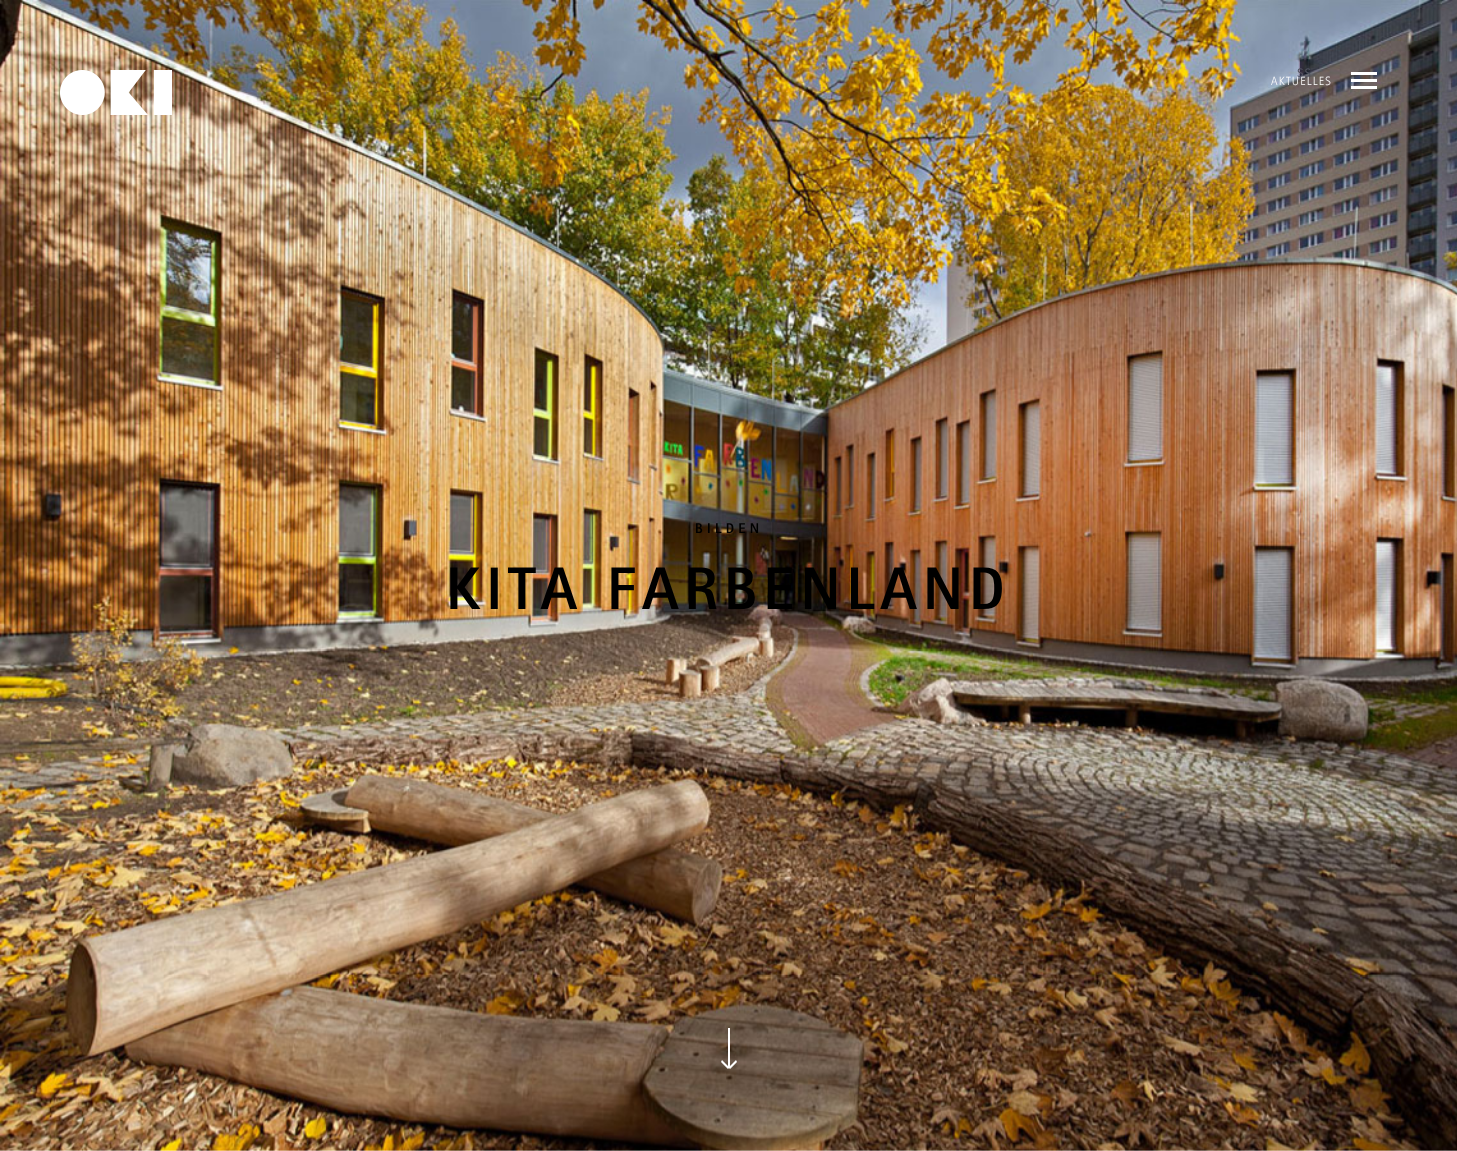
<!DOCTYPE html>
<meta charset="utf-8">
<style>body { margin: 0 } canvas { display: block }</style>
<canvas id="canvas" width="1457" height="1151"></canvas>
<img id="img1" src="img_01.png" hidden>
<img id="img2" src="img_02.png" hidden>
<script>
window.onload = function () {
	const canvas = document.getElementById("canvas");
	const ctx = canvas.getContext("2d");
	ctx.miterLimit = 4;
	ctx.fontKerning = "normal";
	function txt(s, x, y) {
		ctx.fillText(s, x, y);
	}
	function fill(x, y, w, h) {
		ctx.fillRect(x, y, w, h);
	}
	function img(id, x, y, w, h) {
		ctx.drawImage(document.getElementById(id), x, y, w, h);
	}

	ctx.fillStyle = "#FFFFFF";
	fill(0, 0, 1457, 1151);
	img("img1", 0, 0, 1457, 1151);
	img("img2", 60, 70, 112, 45);
	fill(1351, 72, 26, 3);
	fill(1351, 79, 26, 3);
	fill(1351, 86, 26, 3);
	ctx.beginPath();
	ctx.moveTo(730, 1069);
	ctx.lineTo(729, 1068);
	ctx.lineTo(728, 1069);
	ctx.lineTo(721, 1062);
	ctx.lineTo(722, 1060);
	ctx.lineTo(728, 1066);
	ctx.lineTo(728, 1028);
	ctx.lineTo(730, 1028);
	ctx.lineTo(730, 1066);
	ctx.lineTo(736, 1060);
	ctx.lineTo(737, 1062);
	ctx.closePath();
	ctx.fill("evenodd");
	ctx.letterSpacing = "1.25px";
	ctx.font = "12px Lato";
	ctx.fillStyle = "#535461";
	txt("SS", 1297, 77);
	ctx.font = "300 12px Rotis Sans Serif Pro";
	ctx.fillStyle = "#FFFFFF";
	txt("AKTUELLES", 1271, 85);
	ctx.letterSpacing = "4.25px";
	ctx.font = "800 14px Rotis Sans Serif Pro";
	ctx.fillStyle = "#000000";
	txt("BILDEN", 695, 533);
	ctx.letterSpacing = "6px";
	ctx.font = "800 60px Rotis Sans Serif Pro";
	txt("KITA FARBENLAND", 446, 609);
};
</script>
